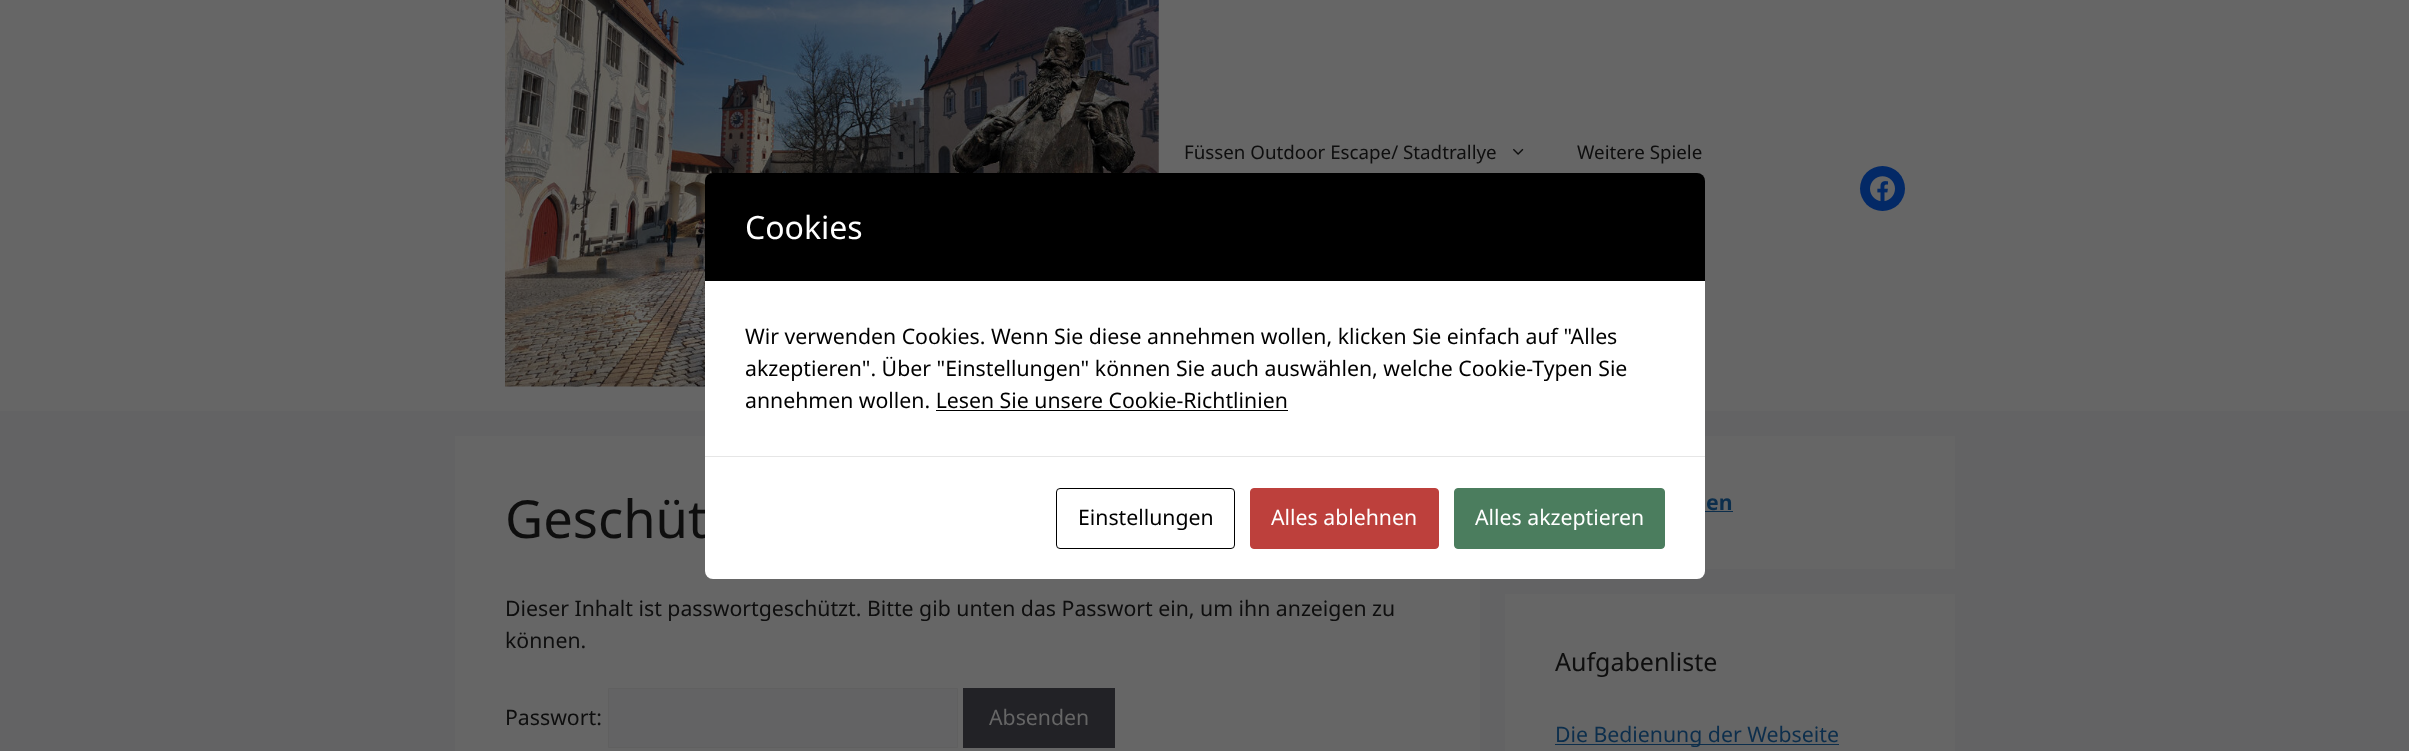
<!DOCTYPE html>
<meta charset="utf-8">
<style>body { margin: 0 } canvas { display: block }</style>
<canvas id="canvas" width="2409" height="751"></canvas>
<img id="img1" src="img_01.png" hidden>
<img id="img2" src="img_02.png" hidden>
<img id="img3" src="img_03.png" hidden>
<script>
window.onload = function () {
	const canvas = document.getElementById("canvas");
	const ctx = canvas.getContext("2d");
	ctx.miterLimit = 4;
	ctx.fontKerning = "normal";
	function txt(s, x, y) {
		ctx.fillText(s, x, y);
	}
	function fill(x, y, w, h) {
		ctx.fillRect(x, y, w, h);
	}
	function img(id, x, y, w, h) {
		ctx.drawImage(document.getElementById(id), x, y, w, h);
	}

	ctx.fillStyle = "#636364";
	fill(0, 0, 2409, 751);
	ctx.fillStyle = "#666666";
	fill(0, 0, 2409, 411);
	img("img1", 505, 0, 654, 387);
	img("img2", 1513, 148, 11, 7);
	ctx.fillStyle = "#032966";
	ctx.beginPath();
	ctx.arc(1882.5, 188.5, 22.5, 0, Math.PI * 2);
	ctx.fill();
	img("img3", 1870, 176, 25, 26);
	ctx.fillStyle = "#000000";
	ctx.beginPath();
	ctx.roundRect(705, 173, 1000, 108, [8, 8, 0, 0]);
	ctx.fill();
	ctx.fillStyle = "#666666";
	fill(455, 436, 1025, 315);
	ctx.fillStyle = "#FFFFFF";
	fill(705, 281, 1000, 175);
	ctx.fillStyle = "#000000";
	fill(936, 410, 352, 1);
	ctx.fillStyle = "#636364";
	ctx.beginPath();
	ctx.rect(608.5, 688.5, 349, 59);
	ctx.fill();
	ctx.strokeStyle = "#606060";
	ctx.stroke();
	ctx.fillStyle = "#222226";
	fill(963, 688, 152, 60);
	ctx.fillStyle = "#666666";
	fill(1705, 436, 250, 133);
	ctx.fillStyle = "#0C2E4C";
	fill(1705, 511, 28, 1);
	ctx.fillStyle = "#666666";
	fill(1505, 594, 450, 157);
	ctx.fillStyle = "#0C2E4C";
	fill(1555, 744, 284, 1);
	ctx.font = "18.75px Noto Sans";
	ctx.fillStyle = "#0E0E0E";
	txt("Füssen Outdoor Escape/ Stadtrallye", 1184, 159);
	txt("Weitere Spiele", 1577, 159);
	ctx.font = "32px Noto Sans";
	ctx.fillStyle = "#FFFFFF";
	txt("Cookies", 745, 239);
	ctx.font = "21.25px Noto Sans";
	ctx.fillStyle = "#000000";
	txt("Wir verwenden Cookies. Wenn Sie diese annehmen wollen, klicken Sie einfach auf \"Alles", 745, 344);
	txt("akzeptieren\". Über \"Einstellungen\" können Sie auch auswählen, welche Cookie-Typen Sie", 745, 376);
	txt("annehmen wollen. Lesen Sie unsere Cookie-Richtlinien", 745, 408);
	ctx.font = "52.5px Noto Sans";
	ctx.fillStyle = "#0E0E0E";
	txt("Geschüt", 505, 538);
	ctx.fillStyle = "#FFFFFF";
	ctx.beginPath();
	ctx.roundRect(705, 456, 1000, 123, [0, 0, 8, 8]);
	ctx.fill();
	ctx.fillStyle = "#4B7D5E";
	ctx.beginPath();
	ctx.roundRect(1454.5, 488.5, 210, 60, 3.5);
	ctx.fill();
	ctx.strokeStyle = "#4B7D5E";
	ctx.stroke();
	ctx.font = "21.25px Noto Sans";
	ctx.fillStyle = "#FFFFFF";
	txt("Alles akzeptieren", 1475, 525);
	ctx.fillStyle = "#BD403C";
	ctx.beginPath();
	ctx.roundRect(1250.5, 488.5, 188, 60, 3.5);
	ctx.fill();
	ctx.strokeStyle = "#BD403C";
	ctx.stroke();
	ctx.fillStyle = "#FFFFFF";
	txt("Alles ablehnen", 1271, 525);
	ctx.beginPath();
	ctx.roundRect(1056.5, 488.5, 178, 60, 3.5);
	ctx.strokeStyle = "#000000";
	ctx.stroke();
	ctx.fillStyle = "#000000";
	txt("Einstellungen", 1078, 525);
	ctx.fillStyle = "#E6E6E6";
	fill(705, 456, 1000, 1);
	ctx.fillStyle = "#0E0E0E";
	txt("Dieser Inhalt ist passwortgeschützt. Bitte gib unten das Passwort ein, um ihn anzeigen zu", 505, 616);
	txt("können.", 505, 648);
	txt("Passwort:", 505, 725);
	ctx.fillStyle = "#666666";
	txt("Absenden", 989, 725);
	ctx.font = "bold 21.25px Noto Sans";
	ctx.fillStyle = "#0C2E4C";
	txt("en", 1706, 510);
	ctx.font = "25px Noto Sans";
	ctx.fillStyle = "#0E0E0E";
	txt("Aufgabenliste", 1555, 671);
	ctx.font = "21.25px Noto Sans";
	ctx.fillStyle = "#0C2E4C";
	txt("Die Bedienung der Webseite", 1555, 742);
};
</script>
